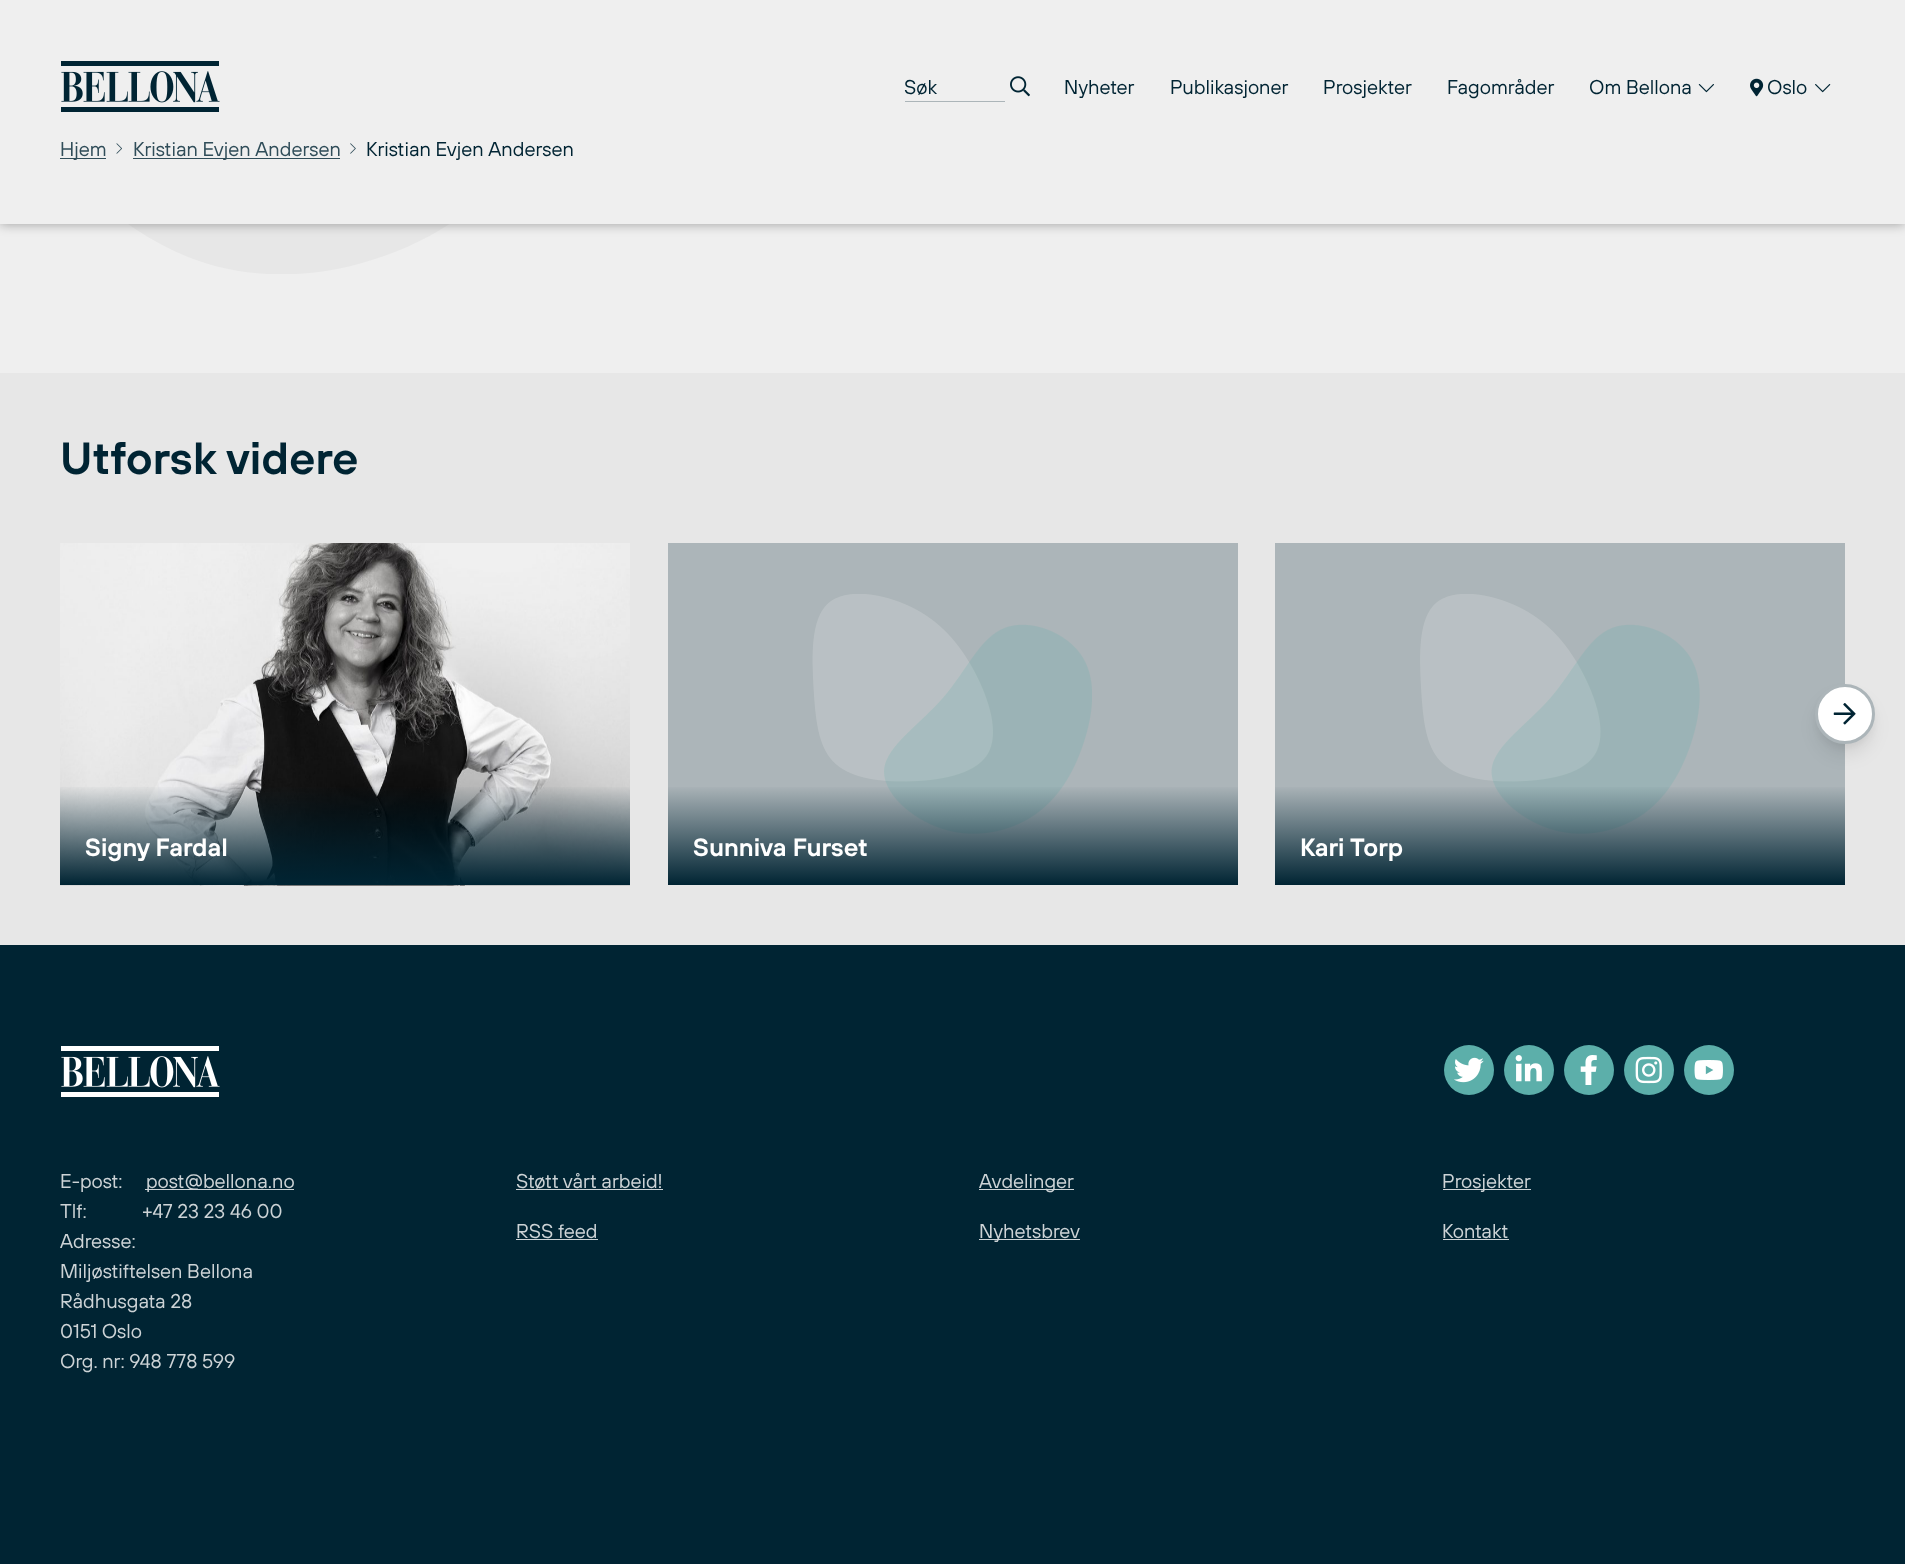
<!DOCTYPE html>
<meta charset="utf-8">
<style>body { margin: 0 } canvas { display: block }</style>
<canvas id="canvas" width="1905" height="1564"></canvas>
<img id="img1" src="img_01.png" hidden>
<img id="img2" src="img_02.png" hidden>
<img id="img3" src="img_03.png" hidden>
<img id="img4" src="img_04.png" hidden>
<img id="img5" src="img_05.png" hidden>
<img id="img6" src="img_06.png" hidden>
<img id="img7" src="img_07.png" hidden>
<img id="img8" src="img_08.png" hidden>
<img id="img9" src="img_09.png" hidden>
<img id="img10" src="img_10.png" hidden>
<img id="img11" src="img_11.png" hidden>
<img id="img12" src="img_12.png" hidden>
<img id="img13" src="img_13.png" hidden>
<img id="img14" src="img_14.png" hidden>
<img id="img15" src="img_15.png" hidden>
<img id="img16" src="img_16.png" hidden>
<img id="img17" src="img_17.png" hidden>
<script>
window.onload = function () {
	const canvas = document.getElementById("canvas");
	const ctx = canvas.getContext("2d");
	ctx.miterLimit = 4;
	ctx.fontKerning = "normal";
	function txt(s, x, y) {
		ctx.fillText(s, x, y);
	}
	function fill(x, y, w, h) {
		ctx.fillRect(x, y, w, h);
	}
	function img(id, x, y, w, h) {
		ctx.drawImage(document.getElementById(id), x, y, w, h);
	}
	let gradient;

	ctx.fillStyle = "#EFEFEF";
	fill(0, 0, 1905, 1564);
	ctx.save();
	ctx.beginPath();
	ctx.rect(0, 0, 600, 274);
	ctx.clip();
	ctx.fillStyle = "#E7E7E7";
	ctx.beginPath();
	ctx.moveTo(502, -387);
	ctx.bezierCurveTo(630, -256, 630, 20, 520, 160);
	ctx.bezierCurveTo(480, 211, 424, 246, 362, 263);
	ctx.bezierCurveTo(305, 279, 243, 279, 188, 257);
	ctx.bezierCurveTo(114, 227, 56, 164, 0, 108);
	ctx.lineTo(0, -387);
	ctx.closePath();
	ctx.fill("evenodd");
	ctx.restore();
	ctx.fillStyle = "rgba(0, 0, 0, 0.35)";
	ctx.filter = "blur(6px)";
	ctx.beginPath();
	ctx.rect(0, 0, 1905, 224);
	ctx.fill();
	ctx.filter = "none";
	ctx.fillStyle = "#EFEFEF";
	fill(0, 0, 1905, 224);
	img("img1", 61, 61, 159, 51);
	ctx.fillStyle = "#ACB5B9";
	fill(905, 101, 100, 1);
	img("img2", 1010, 76, 20, 21);
	img("img3", 1698, 84, 16, 9);
	img("img4", 1750, 78, 14, 19);
	img("img5", 1815, 84, 16, 9);
	ctx.fillStyle = "#304D59";
	fill(60, 158, 46, 1);
	img("img6", 116, 143, 6, 11);
	fill(133, 158, 207, 1);
	img("img7", 350, 143, 6, 11);
	ctx.fillStyle = "#E7E7E7";
	fill(0, 373, 1905, 572);
	ctx.fillStyle = "#ACB5B9";
	fill(1275, 543, 570, 341);
	ctx.fillStyle = "rgba(0, 0, 0, 0.05)";
	ctx.filter = "blur(4px)";
	ctx.beginPath();
	ctx.roundRect(1818, 691, 55, 55, 27.5);
	ctx.fill();
	ctx.filter = "none";
	ctx.fillStyle = "rgba(0, 0, 0, 0.1)";
	ctx.filter = "blur(9.5px)";
	ctx.beginPath();
	ctx.roundRect(1819, 700, 52, 53, 26);
	ctx.fill();
	ctx.filter = "none";
	ctx.fillStyle = "#FFFFFF";
	ctx.beginPath();
	ctx.arc(1845, 714, 28.5, 0, Math.PI * 2);
	ctx.fill();
	ctx.strokeStyle = "#ACB5B9";
	ctx.lineWidth = 3;
	ctx.stroke();
	img("img8", 1833, 703, 23, 22);
	img("img9", 60, 543, 570, 343);
	gradient = ctx.createLinearGradient(345, 885, 345, 785);
	gradient.addColorStop(0, "#002433");
	gradient.addColorStop(1, "rgba(0, 36, 51, 0)");
	ctx.fillStyle = gradient;
	fill(60, 787, 570, 98);
	ctx.fillStyle = "#ACB5B9";
	fill(668, 543, 570, 341);
	img("img10", 812, 594, 280, 240);
	gradient = ctx.createLinearGradient(953, 885, 953, 785);
	gradient.addColorStop(0, "#002433");
	gradient.addColorStop(1, "rgba(0, 36, 51, 0)");
	ctx.fillStyle = gradient;
	fill(668, 787, 570, 98);
	img("img11", 1420, 594, 280, 240);
	gradient = ctx.createLinearGradient(1560, 885, 1560, 785);
	gradient.addColorStop(0, "#002433");
	gradient.addColorStop(1, "rgba(0, 36, 51, 0)");
	ctx.fillStyle = gradient;
	fill(1275, 787, 570, 98);
	ctx.fillStyle = "#002433";
	fill(0, 945, 1905, 619);
	img("img12", 61, 1046, 159, 51);
	ctx.fillStyle = "#5CAFAA";
	ctx.beginPath();
	ctx.arc(1469, 1070, 25, 0, Math.PI * 2);
	ctx.fill();
	img("img13", 1454, 1057, 30, 26);
	ctx.beginPath();
	ctx.arc(1529, 1070, 25, 0, Math.PI * 2);
	ctx.fill();
	img("img14", 1515, 1055, 27, 27);
	ctx.beginPath();
	ctx.arc(1589, 1070, 25, 0, Math.PI * 2);
	ctx.fill();
	img("img15", 1580, 1055, 17, 30);
	ctx.beginPath();
	ctx.arc(1649, 1070, 25, 0, Math.PI * 2);
	ctx.fill();
	img("img16", 1635, 1056, 27, 28);
	ctx.beginPath();
	ctx.arc(1709, 1070, 25, 0, Math.PI * 2);
	ctx.fill();
	img("img17", 1694, 1060, 29, 20);
	ctx.fillStyle = "#CCD3D6";
	fill(145, 1189, 149, 1);
	fill(516, 1189, 147, 1);
	fill(979, 1189, 95, 1);
	fill(1443, 1189, 88, 1);
	fill(516, 1239, 82, 1);
	fill(979, 1239, 101, 1);
	fill(1443, 1239, 66, 1);
	ctx.font = "20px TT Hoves";
	ctx.fillStyle = "#002433";
	txt("Søk", 904, 94);
	txt("Nyheter", 1064, 94);
	txt("Publikasjoner", 1170, 94);
	txt("Prosjekter", 1323, 94);
	txt("Fagområder", 1447, 94);
	txt("Om Bellona", 1589, 94);
	txt("Oslo", 1767, 94);
	ctx.fillStyle = "#304D59";
	txt("Hjem", 60, 156);
	txt("Kristian Evjen Andersen", 133, 156);
	ctx.fillStyle = "#002433";
	txt("Kristian Evjen Andersen", 366, 156);
	ctx.font = "600 45px TT Hoves";
	txt("Utforsk videre", 60, 474);
	ctx.font = "600 25px TT Hoves";
	ctx.fillStyle = "#FFFFFF";
	txt("Signy Fardal", 85, 856);
	txt("Sunniva Furset", 693, 856);
	txt("Kari Torp", 1300, 856);
	ctx.font = "20px TT Hoves";
	ctx.fillStyle = "#CCD3D6";
	txt("E-post:", 60, 1188);
	txt("post@bellona.no", 146, 1188);
	txt("Tlf:            +47 23 23 46 00", 60, 1218);
	txt("Adresse:", 60, 1248);
	txt("Miljøstiftelsen Bellona", 60, 1278);
	txt("Rådhusgata 28", 60, 1308);
	txt("0151 Oslo", 60, 1338);
	txt("Org. nr: 948 778 599", 60, 1368);
	txt("Støtt vårt arbeid!", 516, 1188);
	txt("Avdelinger", 979, 1188);
	txt("Prosjekter", 1442, 1188);
	txt("RSS feed", 516, 1238);
	txt("Nyhetsbrev", 979, 1238);
	txt("Kontakt", 1442, 1238);
};
</script>
